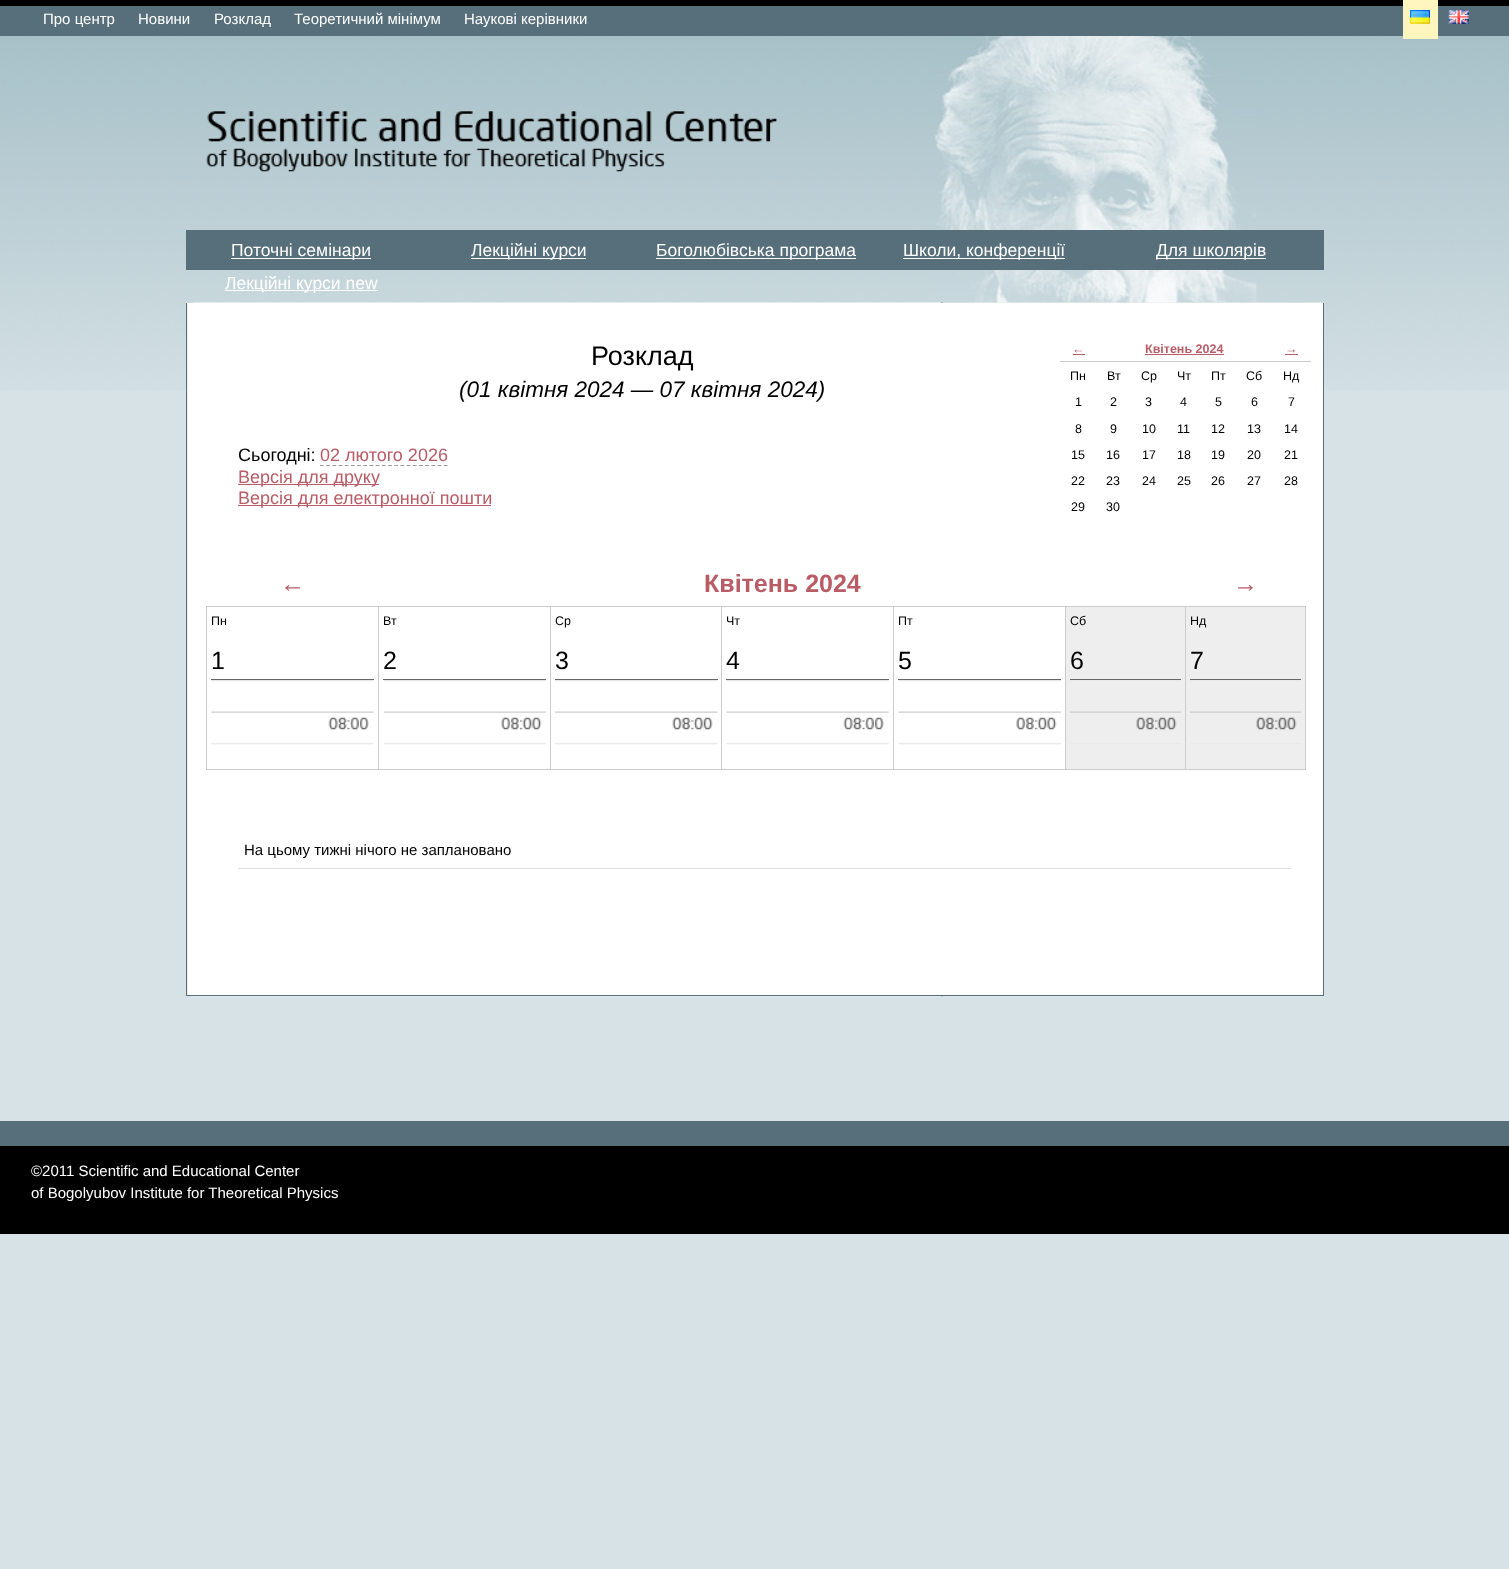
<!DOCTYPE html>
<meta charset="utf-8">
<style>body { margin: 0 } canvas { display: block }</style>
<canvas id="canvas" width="1509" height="1569"></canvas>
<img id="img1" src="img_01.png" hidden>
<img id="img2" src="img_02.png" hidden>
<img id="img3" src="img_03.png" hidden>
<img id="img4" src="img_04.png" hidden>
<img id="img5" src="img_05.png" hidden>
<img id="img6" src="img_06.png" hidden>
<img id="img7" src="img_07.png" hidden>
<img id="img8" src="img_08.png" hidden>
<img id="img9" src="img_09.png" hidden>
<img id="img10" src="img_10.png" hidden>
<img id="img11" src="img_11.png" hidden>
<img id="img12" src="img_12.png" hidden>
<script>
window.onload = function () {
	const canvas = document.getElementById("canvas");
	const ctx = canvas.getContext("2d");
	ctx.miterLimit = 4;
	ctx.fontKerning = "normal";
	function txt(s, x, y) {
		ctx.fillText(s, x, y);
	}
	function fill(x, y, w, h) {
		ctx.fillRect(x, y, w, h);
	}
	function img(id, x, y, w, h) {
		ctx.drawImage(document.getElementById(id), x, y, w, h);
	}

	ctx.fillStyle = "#D6E2E6";
	fill(0, 0, 1509, 1569);
	img("img1", 0, 36, 1509, 354);
	img("img2", 934, 36, 323, 267);
	ctx.fillStyle = "#566F7B";
	fill(0, 6, 1509, 30);
	ctx.fillStyle = "#000000";
	fill(0, 0, 1509, 6);
	ctx.fillStyle = "#FFF6BF";
	fill(1403, 0, 35, 39);
	img("img3", 1410, 10, 20, 14);
	img("img4", 1448, 10, 21, 14);
	img("img5", 206, 111, 572, 61);
	ctx.fillStyle = "#566F7B";
	fill(186, 230, 1138, 40);
	ctx.fillStyle = "#FFFFFF";
	fill(231, 258, 140, 1);
	fill(471, 258, 115, 1);
	fill(656, 258, 200, 1);
	fill(903, 258, 162, 1);
	fill(1156, 258, 110, 1);
	fill(225, 290, 153, 1);
	ctx.fillStyle = "#EEEEEE";
	fill(187, 304, 1, 691);
	img("img6", 186, 302, 1138, 695);
	ctx.fillStyle = "#FFFFFF";
	fill(186, 303, 1138, 1);
	ctx.fillStyle = "#566F7B";
	fill(1323, 303, 1, 693);
	fill(186, 995, 1138, 1);
	fill(186, 303, 1, 693);
	ctx.fillStyle = "#FFFFFF";
	fill(188, 304, 1135, 691);
	ctx.beginPath();
	ctx.moveTo(320, 465.5);
	ctx.lineTo(447.5, 465.5);
	ctx.strokeStyle = "#999999";
	ctx.lineWidth = 1.2;
	ctx.setLineDash([3.75, 2.44]);
	ctx.stroke();
	ctx.fillStyle = "#B95C66";
	fill(238, 484, 141, 1);
	fill(238, 505, 253, 1);
	fill(1073, 354, 12, 1);
	fill(1145, 354, 79, 1);
	ctx.fillStyle = "#CCCCCC";
	fill(1060, 361, 251, 1);
	ctx.fillStyle = "#B95C66";
	fill(1285, 354, 13, 1);
	ctx.fillStyle = "#CCCCCC";
	fill(206, 769, 1100, 1);
	fill(378, 606, 1, 164);
	fill(206, 606, 1, 164);
	fill(550, 606, 1, 164);
	fill(721, 606, 1, 164);
	fill(893, 606, 1, 164);
	fill(1065, 606, 1, 164);
	fill(1185, 606, 1, 164);
	fill(1305, 606, 1, 164);
	fill(206, 606, 1100, 1);
	ctx.fillStyle = "#EEEEEE";
	fill(1066, 607, 119, 162);
	fill(1186, 607, 119, 162);
	ctx.fillStyle = "#666666";
	fill(211, 679, 163, 1);
	img("img7", 211, 680, 163, 65);
	fill(383, 679, 163, 1);
	img("img8", 383, 680, 163, 65);
	fill(555, 679, 163, 1);
	img("img9", 555, 680, 163, 65);
	fill(726, 679, 163, 1);
	img("img7", 726, 680, 163, 65);
	fill(898, 679, 163, 1);
	img("img10", 898, 680, 163, 65);
	fill(1070, 679, 111, 1);
	img("img11", 1070, 680, 111, 64);
	fill(1190, 679, 111, 1);
	img("img12", 1190, 680, 111, 64);
	ctx.fillStyle = "#DEDEDE";
	fill(238, 868, 1053, 1);
	ctx.fillStyle = "#000000";
	fill(0, 1146, 1509, 88);
	ctx.fillStyle = "#566F7B";
	fill(0, 1121, 1509, 25);
	ctx.font = "15px Liberation Sans";
	ctx.fillStyle = "#FFFFFF";
	txt("Про центр", 43, 24);
	txt("Новини", 138, 24);
	txt("Розклад", 214, 24);
	txt("Теоретичний мінімум", 294, 24);
	txt("Наукові керівники", 464, 24);
	ctx.font = "17.5px Liberation Sans";
	txt("Поточні семінари", 231, 256);
	txt("Лекційні курси", 471, 256);
	txt("Боголюбівська програма", 656, 256);
	txt("Школи, конференції", 903, 256);
	txt("Для школярів", 1156, 256);
	txt("Лекційні курси new", 225, 289);
	ctx.font = "27px Liberation Sans";
	ctx.fillStyle = "#000000";
	txt("Розклад", 591, 365);
	ctx.font = "italic 22.5px Liberation Sans";
	txt("(01 квітня 2024 — 07 квітня 2024)", 459, 397);
	ctx.font = "18px Liberation Sans";
	txt("Сьогодні:", 238, 461);
	ctx.fillStyle = "#B95C66";
	txt("02 лютого 2026", 320, 461);
	txt("Версія для друку", 238, 483);
	txt("Версія для електронної пошти", 238, 504);
	ctx.font = "bold 12.5px Liberation Sans";
	txt("←", 1072, 353);
	txt("Квітень 2024", 1145, 353);
	txt("→", 1285, 353);
	ctx.font = "12.5px Liberation Sans";
	ctx.fillStyle = "#000000";
	txt("Пн", 1070, 380);
	txt("Вт", 1107, 380);
	txt("Ср", 1141, 380);
	txt("Чт", 1177, 380);
	txt("Пт", 1211, 380);
	txt("Сб", 1246, 380);
	txt("Нд", 1283, 380);
	txt("1", 1075, 406);
	txt("2", 1110, 406);
	txt("3", 1145, 406);
	txt("4", 1180, 406);
	txt("5", 1215, 406);
	txt("6", 1251, 406);
	txt("7", 1288, 406);
	txt("8", 1075, 433);
	txt("9", 1110, 433);
	txt("10", 1142, 433);
	txt("11", 1177, 433);
	txt("12", 1211, 433);
	txt("13", 1247, 433);
	txt("14", 1284, 433);
	txt("15", 1071, 459);
	txt("16", 1106, 459);
	txt("17", 1142, 459);
	txt("18", 1177, 459);
	txt("19", 1211, 459);
	txt("20", 1247, 459);
	txt("21", 1284, 459);
	txt("22", 1071, 485);
	txt("23", 1106, 485);
	txt("24", 1142, 485);
	txt("25", 1177, 485);
	txt("26", 1211, 485);
	txt("27", 1247, 485);
	txt("28", 1284, 485);
	txt("29", 1071, 511);
	txt("30", 1106, 511);
	ctx.font = "bold 25px Liberation Sans";
	ctx.fillStyle = "#B95C66";
	txt("←", 280, 592);
	txt("Квітень 2024", 704, 592);
	txt("→", 1233, 592);
	ctx.font = "12.5px Liberation Sans";
	ctx.fillStyle = "#000000";
	txt("Пн", 211, 625);
	txt("Вт", 383, 625);
	txt("Ср", 555, 625);
	txt("Чт", 726, 625);
	txt("Пт", 898, 625);
	txt("Сб", 1070, 625);
	txt("Нд", 1190, 625);
	ctx.font = "25px Liberation Sans";
	txt("1", 211, 669);
	txt("2", 383, 669);
	txt("3", 555, 669);
	txt("4", 726, 669);
	txt("5", 898, 669);
	txt("6", 1070, 669);
	txt("7", 1190, 669);
	ctx.font = "15px Liberation Sans";
	txt("На цьому тижні нічого не заплановано", 244, 855);
	ctx.fillStyle = "#FFFFFF";
	txt("©2011 Scientific and Educational Center", 31, 1176);
	txt("of Bogolyubov Institute for Theoretical Physics", 31, 1198);
};
</script>
